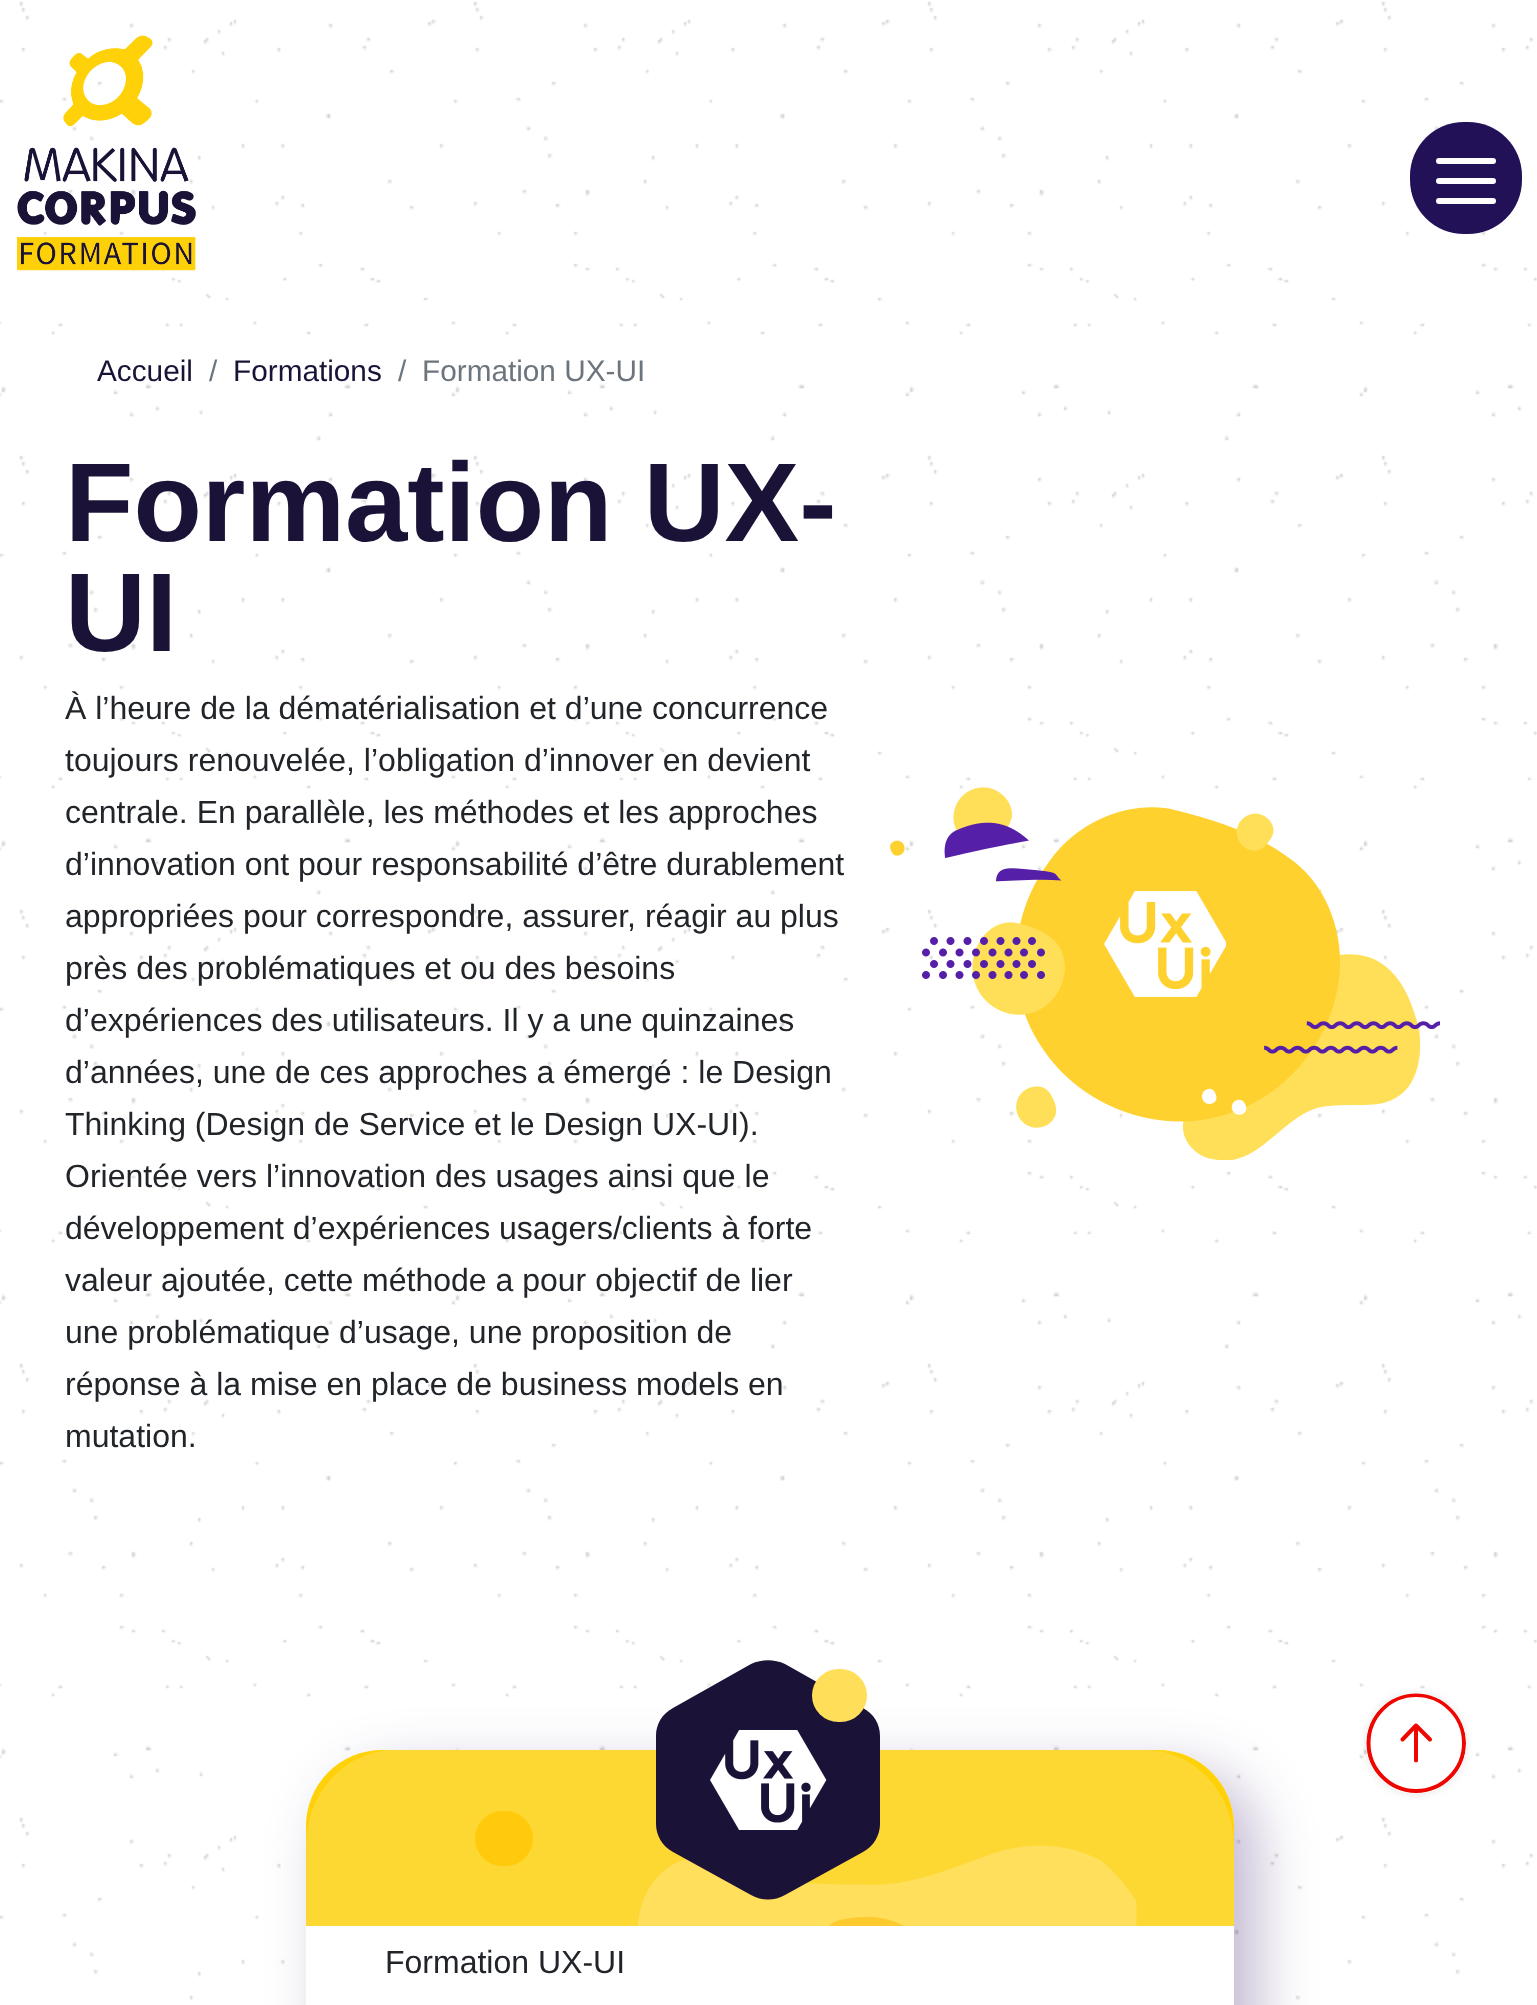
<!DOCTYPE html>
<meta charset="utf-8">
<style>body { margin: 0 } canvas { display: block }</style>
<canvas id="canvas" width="1537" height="2005"></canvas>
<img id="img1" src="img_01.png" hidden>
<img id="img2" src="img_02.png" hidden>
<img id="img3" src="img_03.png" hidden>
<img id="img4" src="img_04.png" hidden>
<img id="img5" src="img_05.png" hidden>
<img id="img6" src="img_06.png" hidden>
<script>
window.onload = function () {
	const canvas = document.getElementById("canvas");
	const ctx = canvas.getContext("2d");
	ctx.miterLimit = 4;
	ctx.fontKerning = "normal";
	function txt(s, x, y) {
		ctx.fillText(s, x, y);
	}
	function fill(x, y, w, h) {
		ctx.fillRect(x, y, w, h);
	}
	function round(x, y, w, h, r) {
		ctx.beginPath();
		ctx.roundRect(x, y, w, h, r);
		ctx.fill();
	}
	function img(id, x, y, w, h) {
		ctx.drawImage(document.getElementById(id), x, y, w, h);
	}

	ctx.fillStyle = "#FFFFFF";
	fill(0, 0, 1537, 2005);
	img("img1", 0, 1, 1537, 1999);
	img("img2", 17, 35, 179, 236);
	ctx.fillStyle = "#221157";
	round(1410, 122, 112, 112, 54);
	ctx.fillStyle = "#FFFFFF";
	round(1436, 158, 60, 6, 3);
	round(1436, 178, 60, 6, 3);
	round(1436, 198, 60, 6, 3);
	img("img3", 890, 787, 551, 373);
	img("img4", 1104, 891, 122, 106);
	ctx.fillStyle = "rgba(48, 14, 98, 0.3)";
	ctx.filter = "blur(30px)";
	ctx.beginPath();
	ctx.roundRect(328, 1772, 928, 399, 76);
	ctx.fill();
	ctx.filter = "none";
	ctx.fillStyle = "#FFFFFF";
	round(306, 1750, 928, 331, 76);
	ctx.fillStyle = "#FFD108";
	ctx.beginPath();
	ctx.roundRect(306, 1750, 928, 176, [76, 76, 0, 0]);
	ctx.fill();
	img("img5", 306, 1750, 928, 176);
	ctx.fillStyle = "#1B1237";
	ctx.beginPath();
	ctx.moveTo(880, 1824);
	ctx.lineTo(880, 1736);
	ctx.bezierCurveTo(880, 1724, 874, 1714, 863, 1708);
	ctx.lineTo(785, 1664);
	ctx.bezierCurveTo(774, 1659, 762, 1659, 751, 1664);
	ctx.lineTo(673, 1708);
	ctx.bezierCurveTo(662, 1714, 656, 1724, 656, 1736);
	ctx.lineTo(656, 1824);
	ctx.bezierCurveTo(656, 1835, 662, 1846, 673, 1852);
	ctx.lineTo(751, 1895);
	ctx.bezierCurveTo(762, 1901, 774, 1901, 785, 1895);
	ctx.lineTo(863, 1852);
	ctx.bezierCurveTo(874, 1846, 880, 1835, 880, 1824);
	ctx.closePath();
	ctx.fill();
	ctx.fillStyle = "#FFDF5A";
	round(812, 1669, 55, 53, 26.5);
	img("img6", 710, 1730, 117, 100);
	ctx.save();
	ctx.beginPath();
	ctx.moveTo(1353, 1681);
	ctx.lineTo(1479, 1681);
	ctx.lineTo(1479, 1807);
	ctx.lineTo(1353, 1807);
	ctx.closePath();
	ctx.moveTo(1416, 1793.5);
	ctx.bezierCurveTo(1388.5, 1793.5, 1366, 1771, 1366, 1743.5);
	ctx.bezierCurveTo(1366, 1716, 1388.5, 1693.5, 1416, 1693.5);
	ctx.bezierCurveTo(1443.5, 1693.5, 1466, 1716, 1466, 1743.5);
	ctx.bezierCurveTo(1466, 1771, 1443.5, 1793.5, 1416, 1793.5);
	ctx.closePath();
	ctx.clip("evenodd");
	ctx.fillStyle = "rgba(0, 0, 0, 0.1)";
	ctx.filter = "blur(4px)";
	ctx.beginPath();
	ctx.roundRect(1366, 1694, 100, 100, 50);
	ctx.fill();
	ctx.filter = "none";
	ctx.restore();
	ctx.fillStyle = "rgba(255, 255, 255, 0.82)";
	ctx.beginPath();
	ctx.moveTo(1416, 1793);
	ctx.bezierCurveTo(1388, 1793, 1366, 1771, 1366, 1743);
	ctx.bezierCurveTo(1366, 1716, 1388, 1693, 1416, 1693);
	ctx.bezierCurveTo(1444, 1693, 1466, 1716, 1466, 1743);
	ctx.bezierCurveTo(1466, 1771, 1444, 1793, 1416, 1793);
	ctx.closePath();
	ctx.fill();
	ctx.save();
	ctx.beginPath();
	ctx.moveTo(1416, 1793.5);
	ctx.bezierCurveTo(1388.5, 1793.5, 1366, 1771, 1366, 1743.5);
	ctx.bezierCurveTo(1366, 1716, 1388.5, 1693.5, 1416, 1693.5);
	ctx.bezierCurveTo(1443.5, 1693.5, 1466, 1716, 1466, 1743.5);
	ctx.bezierCurveTo(1466, 1771, 1443.5, 1793.5, 1416, 1793.5);
	ctx.closePath();
	ctx.clip();
	ctx.beginPath();
	ctx.moveTo(1416, 1791);
	ctx.bezierCurveTo(1390, 1791, 1368.5, 1769.5, 1368.5, 1743);
	ctx.bezierCurveTo(1368.5, 1716.5, 1390, 1695, 1416, 1695);
	ctx.bezierCurveTo(1442.5, 1695, 1464, 1716.5, 1464, 1743);
	ctx.bezierCurveTo(1464, 1769.5, 1442.5, 1791, 1416, 1791);
	ctx.closePath();
	ctx.strokeStyle = "#EE0701";
	ctx.lineWidth = 4;
	ctx.lineCap = "round";
	ctx.lineJoin = "round";
	ctx.stroke();
	ctx.restore();
	ctx.beginPath();
	ctx.moveTo(1402.5, 1739.5);
	ctx.lineTo(1416, 1725.5);
	ctx.lineTo(1430, 1739.5);
	ctx.moveTo(1416, 1725.5);
	ctx.lineTo(1416, 1760.5);
	ctx.strokeStyle = "#EE0701";
	ctx.lineWidth = 4;
	ctx.lineCap = "round";
	ctx.lineJoin = "round";
	ctx.stroke();
	ctx.font = "29.75px Liberation Sans";
	ctx.fillStyle = "#1B1237";
	txt("Accueil", 97, 381);
	ctx.fillStyle = "#6C757D";
	txt("/", 209, 381);
	ctx.fillStyle = "#1B1237";
	txt("Formations", 233, 381);
	ctx.fillStyle = "#6C757D";
	txt("/", 398, 381);
	txt("Formation UX-UI", 422, 381);
	ctx.font = "bold 112px Liberation Sans";
	ctx.fillStyle = "#1B1237";
	txt("Formation UX-", 65, 541);
	txt("UI", 65, 651);
	ctx.font = "32px Liberation Sans";
	ctx.fillStyle = "#212529";
	txt("À l’heure de la dématérialisation et d’une concurrence", 65, 719);
	txt("toujours renouvelée, l’obligation d’innover en devient", 65, 771);
	txt("centrale. En parallèle, les méthodes et les approches", 65, 823);
	txt("d’innovation ont pour responsabilité d’être durablement", 65, 875);
	txt("appropriées pour correspondre, assurer, réagir au plus", 65, 927);
	txt("près des problématiques et ou des besoins", 65, 979);
	txt("d’expériences des utilisateurs. Il y a une quinzaines", 65, 1031);
	txt("d’années, une de ces approches a émergé : le Design", 65, 1083);
	txt("Thinking (Design de Service et le Design UX-UI).", 65, 1135);
	txt("Orientée vers l’innovation des usages ainsi que le", 65, 1187);
	txt("développement d’expériences usagers/clients à forte", 65, 1239);
	txt("valeur ajoutée, cette méthode a pour objectif de lier", 65, 1291);
	txt("une problématique d’usage, une proposition de", 65, 1343);
	txt("réponse à la mise en place de business models en", 65, 1395);
	txt("mutation.", 65, 1447);
	txt("Formation UX-UI", 385, 1973);
};
</script>
